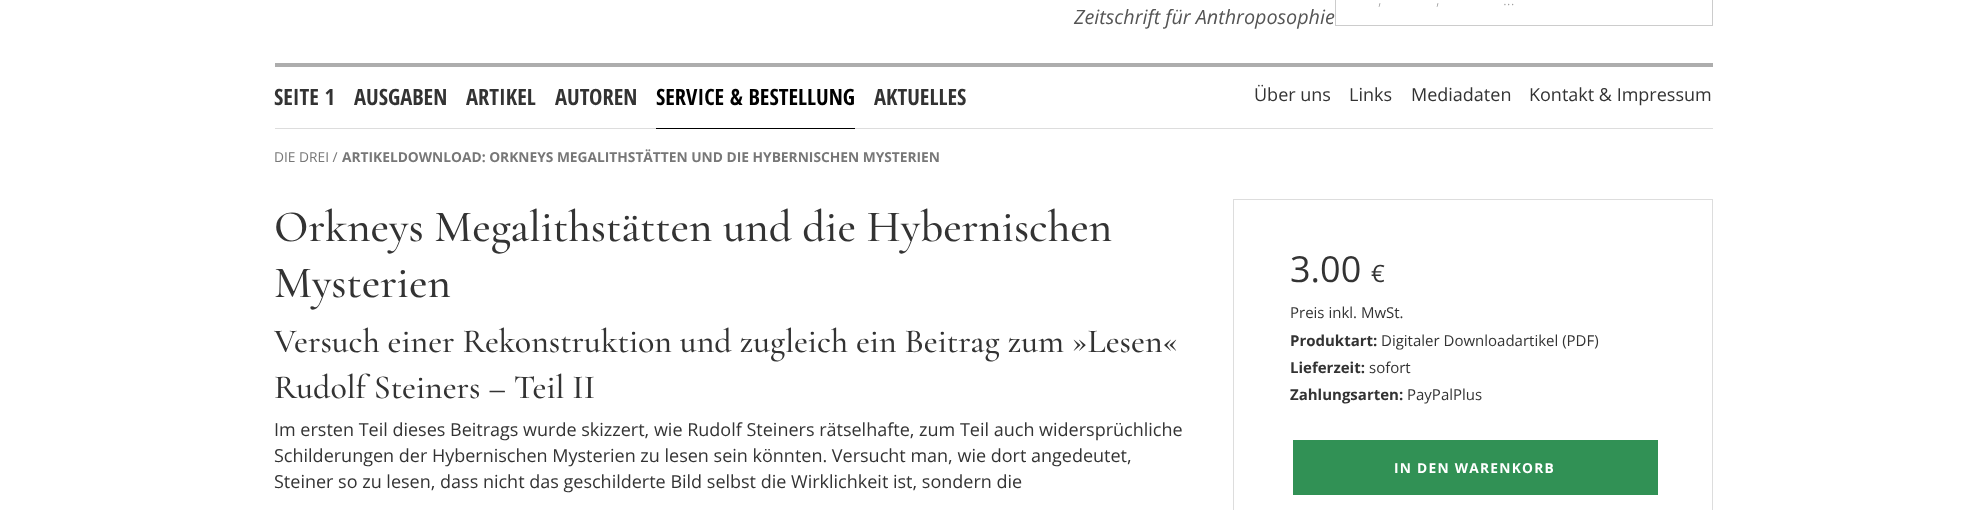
<!DOCTYPE html>
<meta charset="utf-8">
<style>body { margin: 0 } canvas { display: block }</style>
<canvas id="canvas" width="1986" height="510"></canvas>
<script>
window.onload = function () {
	const canvas = document.getElementById("canvas");
	const ctx = canvas.getContext("2d");
	ctx.miterLimit = 4;
	ctx.fontKerning = "normal";
	function txt(s, x, y) {
		ctx.fillText(s, x, y);
	}
	function fill(x, y, w, h) {
		ctx.fillRect(x, y, w, h);
	}

	ctx.fillStyle = "#FFFFFF";
	fill(0, 0, 1986, 510);
	ctx.strokeStyle = "#CCCCCC";
	ctx.strokeRect(1335.5, -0.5, 377, 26);
	ctx.fillStyle = "#ADADAD";
	fill(275, 63, 1438, 4);
	ctx.fillStyle = "#DDDDDD";
	fill(275, 128, 1438, 1);
	ctx.fillStyle = "#000000";
	fill(656, 128, 199, 1);
	ctx.strokeStyle = "#DDDDDD";
	ctx.strokeRect(1233.5, 199.5, 479, 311);
	ctx.fillStyle = "#319155";
	fill(1293, 440, 365, 55);
	ctx.font = "300 16px Open Sans";
	ctx.fillStyle = "#999999";
	txt(",", 1378, 5);
	txt(",", 1436, 5);
	txt("...", 1503, 5);
	ctx.font = "italic 19.75px Open Sans";
	ctx.fillStyle = "#555555";
	txt("Zeitschrift für Anthroposophie", 1074, 24);
	ctx.font = "bold 22.5px Open Sans Condensed";
	ctx.fillStyle = "#333333";
	txt("SEITE 1", 274, 105);
	txt("AUSGABEN", 354, 105);
	txt("ARTIKEL", 466, 105);
	txt("AUTOREN", 555, 105);
	ctx.fillStyle = "#000000";
	txt("SERVICE & BESTELLUNG", 656, 105);
	ctx.fillStyle = "#333333";
	txt("AKTUELLES", 874, 105);
	ctx.font = "18px Open Sans";
	txt("Über uns", 1254, 101);
	txt("Links", 1349, 101);
	txt("Mediadaten", 1411, 101);
	txt("Kontakt & Impressum", 1529, 101);
	ctx.font = "13.75px Open Sans";
	ctx.fillStyle = "#777777";
	txt("DIE DREI /", 274, 162);
	ctx.font = "bold 13.75px Open Sans";
	txt("ARTIKELDOWNLOAD: ORKNEYS MEGALITHSTÄTTEN UND DIE HYBERNISCHEN MYSTERIEN", 342, 162);
	ctx.font = "500 45px Cormorant Garamond";
	ctx.fillStyle = "#333333";
	txt("Orkneys Megalithstätten und die Hybernischen", 274, 241);
	txt("Mysterien", 274, 297);
	ctx.font = "500 33.85px Cormorant Garamond";
	txt("Versuch einer Rekonstruktion und zugleich ein Beitrag zum »Lesen«", 274, 352);
	txt("Rudolf Steiners – Teil II", 274, 398);
	ctx.font = "18px Open Sans";
	txt("Im ersten Teil dieses Beitrags wurde skizzert, wie Rudolf Steiners rätselhafte, zum Teil auch widersprüchliche", 274, 436);
	txt("Schilderungen der Hybernischen Mysterien zu lesen sein könnten. Versucht man, wie dort angedeutet,", 274, 462);
	txt("Steiner so zu lesen, dass nicht das geschilderte Bild selbst die Wirklichkeit ist, sondern die", 274, 488);
	ctx.font = "36px Open Sans";
	txt("3.00", 1290, 282);
	ctx.font = "24px Open Sans";
	txt("€", 1371, 282);
	ctx.font = "15px Open Sans";
	txt("Preis inkl. MwSt.", 1290, 318);
	ctx.font = "bold 15px Open Sans";
	txt("Produktart:", 1290, 346);
	ctx.font = "15px Open Sans";
	txt("Digitaler Downloadartikel (PDF)", 1381, 346);
	ctx.font = "bold 15px Open Sans";
	txt("Lieferzeit:", 1290, 373);
	ctx.font = "15px Open Sans";
	txt("sofort", 1369, 373);
	ctx.font = "bold 15px Open Sans";
	txt("Zahlungsarten:", 1290, 400);
	ctx.font = "15px Open Sans";
	txt("PayPalPlus", 1407, 400);
	ctx.letterSpacing = "1.25px";
	ctx.font = "bold 13.75px Open Sans";
	ctx.fillStyle = "#FFFFFF";
	txt("IN DEN WARENKORB", 1394, 473);
};
</script>
